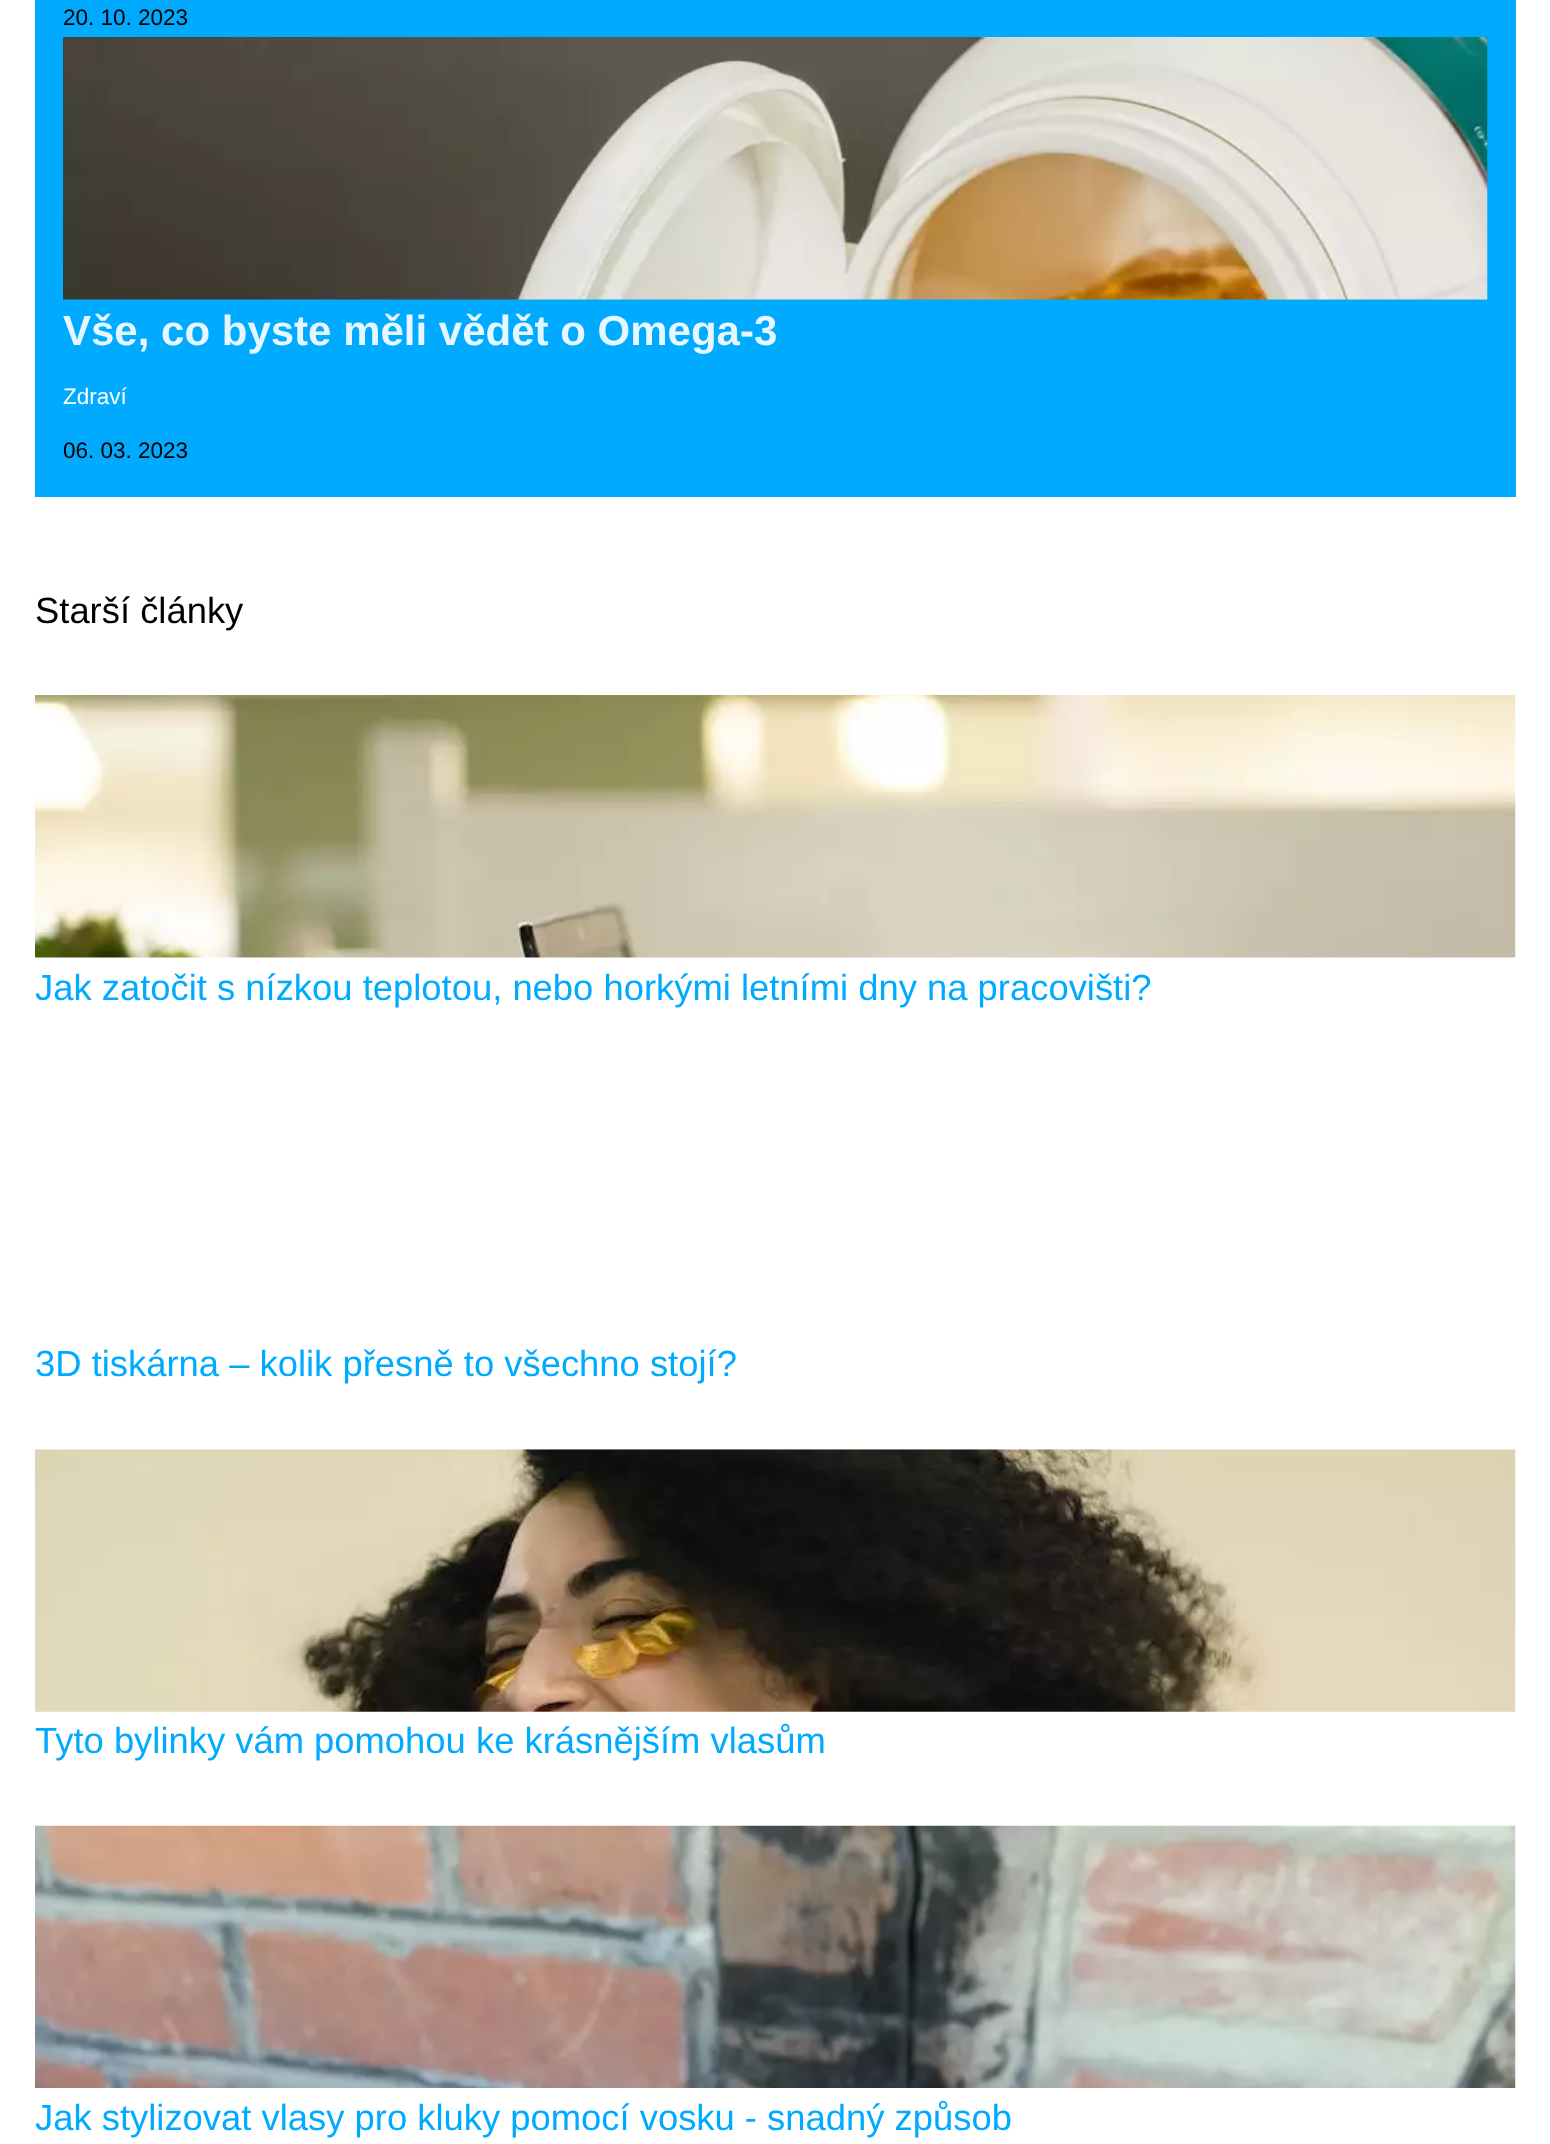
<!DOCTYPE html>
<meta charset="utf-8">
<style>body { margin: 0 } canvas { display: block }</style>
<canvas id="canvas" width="1550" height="2144"></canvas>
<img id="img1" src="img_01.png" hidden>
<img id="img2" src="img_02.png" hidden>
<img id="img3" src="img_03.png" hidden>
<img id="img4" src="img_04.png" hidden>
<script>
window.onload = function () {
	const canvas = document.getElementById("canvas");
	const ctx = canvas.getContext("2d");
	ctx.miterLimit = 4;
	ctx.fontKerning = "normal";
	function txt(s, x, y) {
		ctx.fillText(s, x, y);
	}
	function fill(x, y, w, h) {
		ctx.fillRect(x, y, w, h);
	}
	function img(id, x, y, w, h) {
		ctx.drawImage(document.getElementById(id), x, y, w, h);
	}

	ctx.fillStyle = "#FFFFFF";
	fill(0, 0, 1550, 2144);
	ctx.fillStyle = "#00AAFF";
	fill(35, 0, 1481, 497);
	img("img1", 63, 37, 1425, 263);
	img("img2", 35, 695, 1481, 263);
	img("img3", 35, 1449, 1481, 263);
	img("img4", 35, 1825, 1481, 263);
	ctx.font = "22.5px Liberation Sans";
	ctx.fillStyle = "#000000";
	txt("20. 10. 2023", 63, 25);
	ctx.font = "bold 42px Liberation Sans";
	ctx.fillStyle = "#E6F7FF";
	txt("Vše, co byste měli vědět o Omega-3", 63, 345);
	ctx.font = "22.5px Liberation Sans";
	ctx.fillStyle = "#FFFFFF";
	txt("Zdraví", 63, 404);
	ctx.fillStyle = "#000000";
	txt("06. 03. 2023", 63, 458);
	ctx.font = "36.4px Liberation Sans";
	txt("Starší články", 35, 623);
	ctx.fillStyle = "#00AAFF";
	txt("Jak zatočit s nízkou teplotou, nebo horkými letními dny na pracovišti?", 35, 1000);
	txt("3D tiskárna – kolik přesně to všechno stojí?", 35, 1376);
	txt("Tyto bylinky vám pomohou ke krásnějším vlasům", 35, 1753);
	txt("Jak stylizovat vlasy pro kluky pomocí vosku - snadný způsob", 35, 2130);
};
</script>
